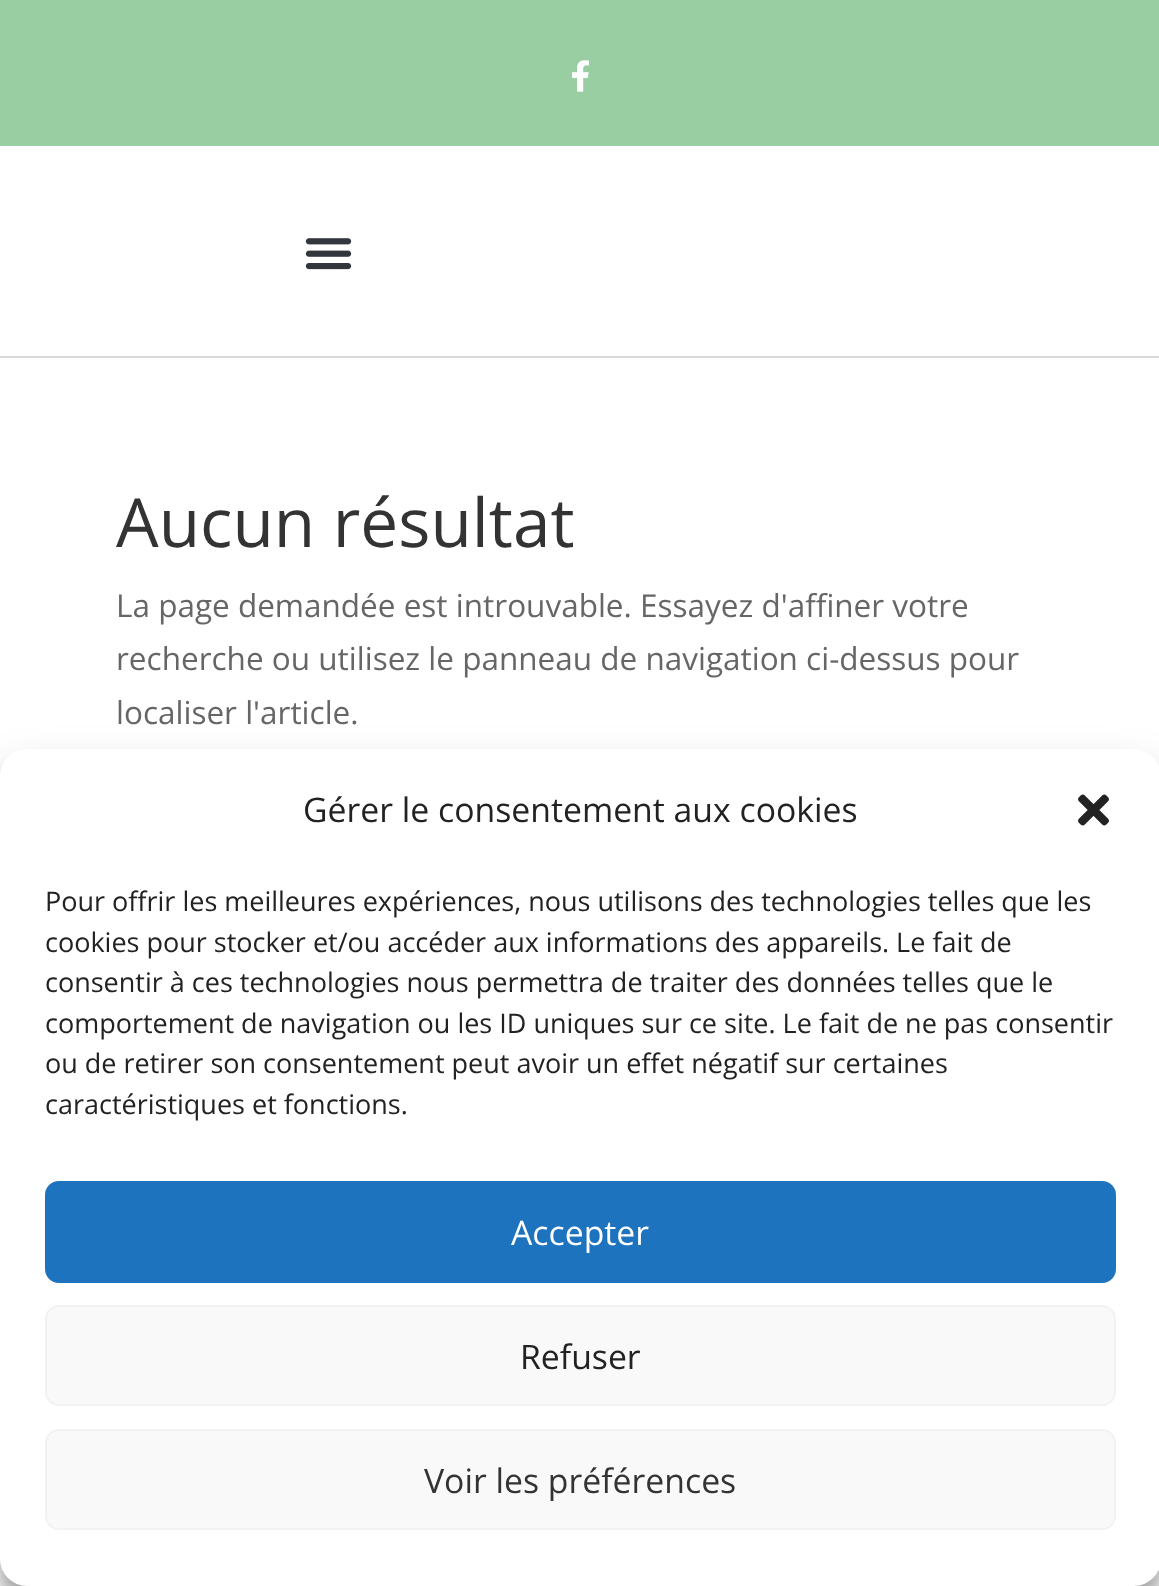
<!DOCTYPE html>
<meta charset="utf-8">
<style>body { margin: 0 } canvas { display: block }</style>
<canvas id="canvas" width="1159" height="1586"></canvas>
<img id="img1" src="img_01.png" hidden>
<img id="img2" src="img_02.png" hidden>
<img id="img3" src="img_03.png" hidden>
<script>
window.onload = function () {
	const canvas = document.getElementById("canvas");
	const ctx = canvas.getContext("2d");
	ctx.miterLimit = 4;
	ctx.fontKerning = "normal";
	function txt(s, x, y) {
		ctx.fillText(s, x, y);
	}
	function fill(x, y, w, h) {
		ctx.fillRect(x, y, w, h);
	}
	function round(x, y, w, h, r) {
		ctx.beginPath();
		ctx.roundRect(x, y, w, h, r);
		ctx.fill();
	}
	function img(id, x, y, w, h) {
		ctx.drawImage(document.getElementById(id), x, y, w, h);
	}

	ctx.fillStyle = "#FFFFFF";
	fill(0, 0, 1159, 1586);
	ctx.fillStyle = "#99CEA2";
	fill(0, 0, 1159, 146);
	img("img1", 572, 60, 17, 32);
	ctx.fillStyle = "#D8D8D8";
	fill(0, 356, 1159, 2);
	img("img2", 305, 238, 47, 32);
	ctx.fillStyle = "rgba(0, 0, 0, 0.23)";
	ctx.filter = "blur(7px)";
	ctx.beginPath();
	ctx.roundRect(0, 763, 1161, 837, 27);
	ctx.fill();
	ctx.filter = "none";
	ctx.fillStyle = "rgba(0, 0, 0, 0.19)";
	ctx.filter = "blur(22.5px)";
	ctx.beginPath();
	ctx.roundRect(0, 772, 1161, 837, 27);
	ctx.fill();
	ctx.filter = "none";
	ctx.fillStyle = "#FFFFFF";
	round(0, 749, 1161, 837, 27);
	img("img3", 1078, 794, 31, 32);
	ctx.fillStyle = "#1E73BE";
	ctx.beginPath();
	ctx.roundRect(46, 1182, 1069, 100, 13);
	ctx.fill();
	ctx.strokeStyle = "#1E73BE";
	ctx.lineWidth = 2;
	ctx.stroke();
	ctx.fillStyle = "#F9F9F9";
	ctx.beginPath();
	ctx.roundRect(46, 1306, 1069, 99, 13);
	ctx.fill();
	ctx.strokeStyle = "#F2F2F2";
	ctx.stroke();
	ctx.beginPath();
	ctx.roundRect(46, 1430, 1069, 99, 13);
	ctx.fill();
	ctx.stroke();
	ctx.font = "67.5px Open Sans";
	ctx.fillStyle = "#333333";
	txt("Aucun résultat", 116, 547);
	ctx.font = "31.5px Open Sans";
	ctx.fillStyle = "#666666";
	txt("La page demandée est introuvable. Essayez d'affiner votre", 116, 617);
	txt("recherche ou utilisez le panneau de navigation ci-dessus pour", 116, 670);
	txt("localiser l'article.", 116, 724);
	ctx.font = "33.75px Open Sans";
	ctx.fillStyle = "#222222";
	txt("Gérer le consentement aux cookies", 303, 822);
	ctx.font = "27px Open Sans";
	txt("Pour offrir les meilleures expériences, nous utilisons des technologies telles que les", 45, 911);
	txt("cookies pour stocker et/ou accéder aux informations des appareils. Le fait de", 45, 952);
	txt("consentir à ces technologies nous permettra de traiter des données telles que le", 45, 992);
	txt("comportement de navigation ou les ID uniques sur ce site. Le fait de ne pas consentir", 45, 1033);
	txt("ou de retirer son consentement peut avoir un effet négatif sur certaines", 45, 1073);
	txt("caractéristiques et fonctions.", 45, 1114);
	ctx.font = "33.75px Open Sans";
	ctx.fillStyle = "#FFFFFF";
	txt("Accepter", 511, 1245);
	ctx.fillStyle = "#222222";
	txt("Refuser", 520, 1369);
	ctx.fillStyle = "#333333";
	txt("Voir les préférences", 424, 1493);
};
</script>
